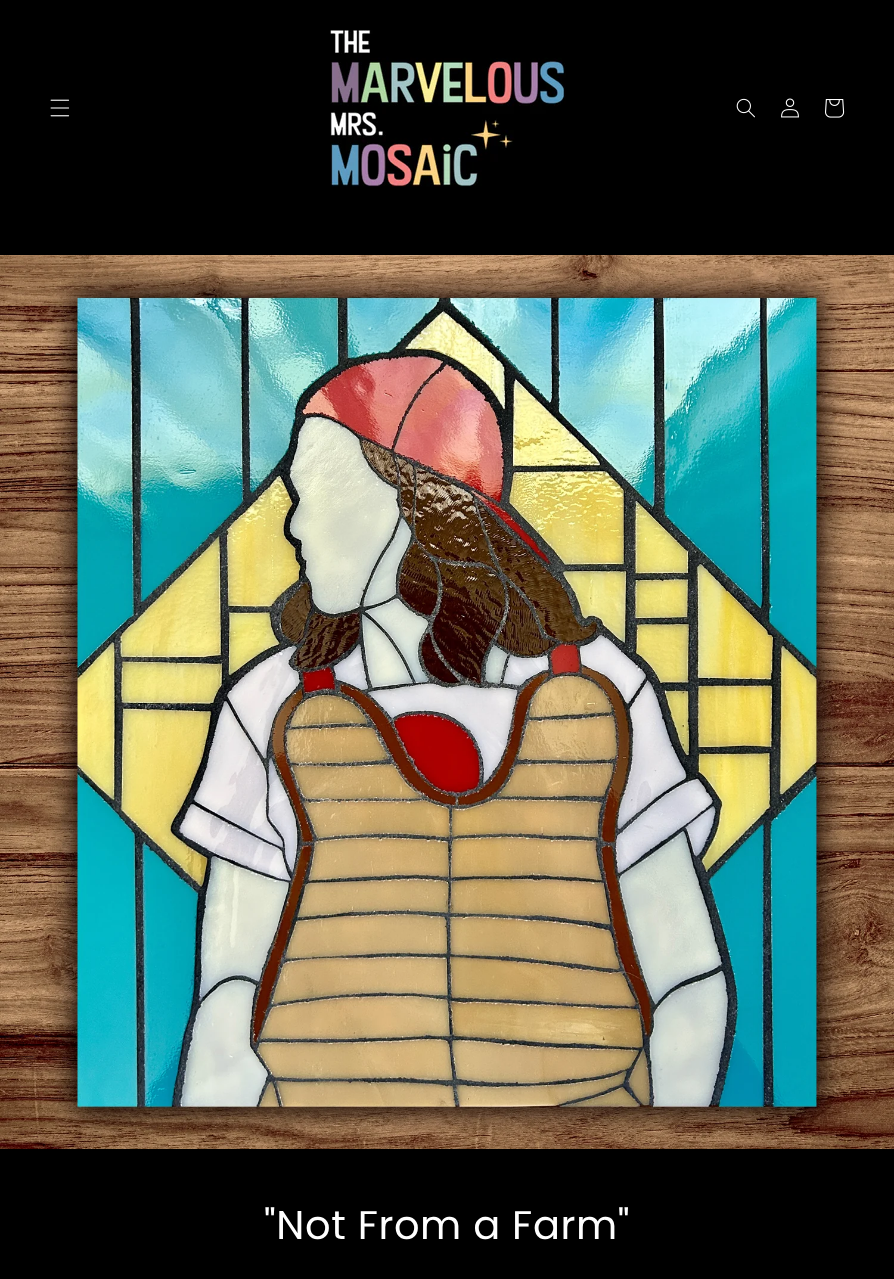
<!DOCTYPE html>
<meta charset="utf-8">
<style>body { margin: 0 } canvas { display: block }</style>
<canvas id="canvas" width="894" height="1279"></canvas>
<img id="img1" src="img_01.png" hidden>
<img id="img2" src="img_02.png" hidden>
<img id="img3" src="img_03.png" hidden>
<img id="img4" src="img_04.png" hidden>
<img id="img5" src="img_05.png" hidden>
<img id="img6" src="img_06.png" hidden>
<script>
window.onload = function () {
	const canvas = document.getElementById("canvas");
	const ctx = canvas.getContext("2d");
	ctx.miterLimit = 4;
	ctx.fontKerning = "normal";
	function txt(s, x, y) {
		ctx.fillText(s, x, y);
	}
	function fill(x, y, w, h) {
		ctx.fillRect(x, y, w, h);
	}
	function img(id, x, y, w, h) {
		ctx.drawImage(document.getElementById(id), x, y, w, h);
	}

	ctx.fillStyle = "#000000";
	fill(0, 0, 894, 1279);
	img("img1", 50, 99, 20, 18);
	img("img2", 330, 30, 236, 157);
	img("img3", 736, 98, 19, 20);
	img("img4", 781, 98, 18, 20);
	img("img5", 825, 99, 20, 19);
	img("img6", 0, 255, 894, 894);
	ctx.letterSpacing = "0.6px";
	ctx.font = "40px Poppins";
	ctx.fillStyle = "#FFFFFF";
	txt("\"Not From a Farm\"", 264, 1239);
};
</script>
